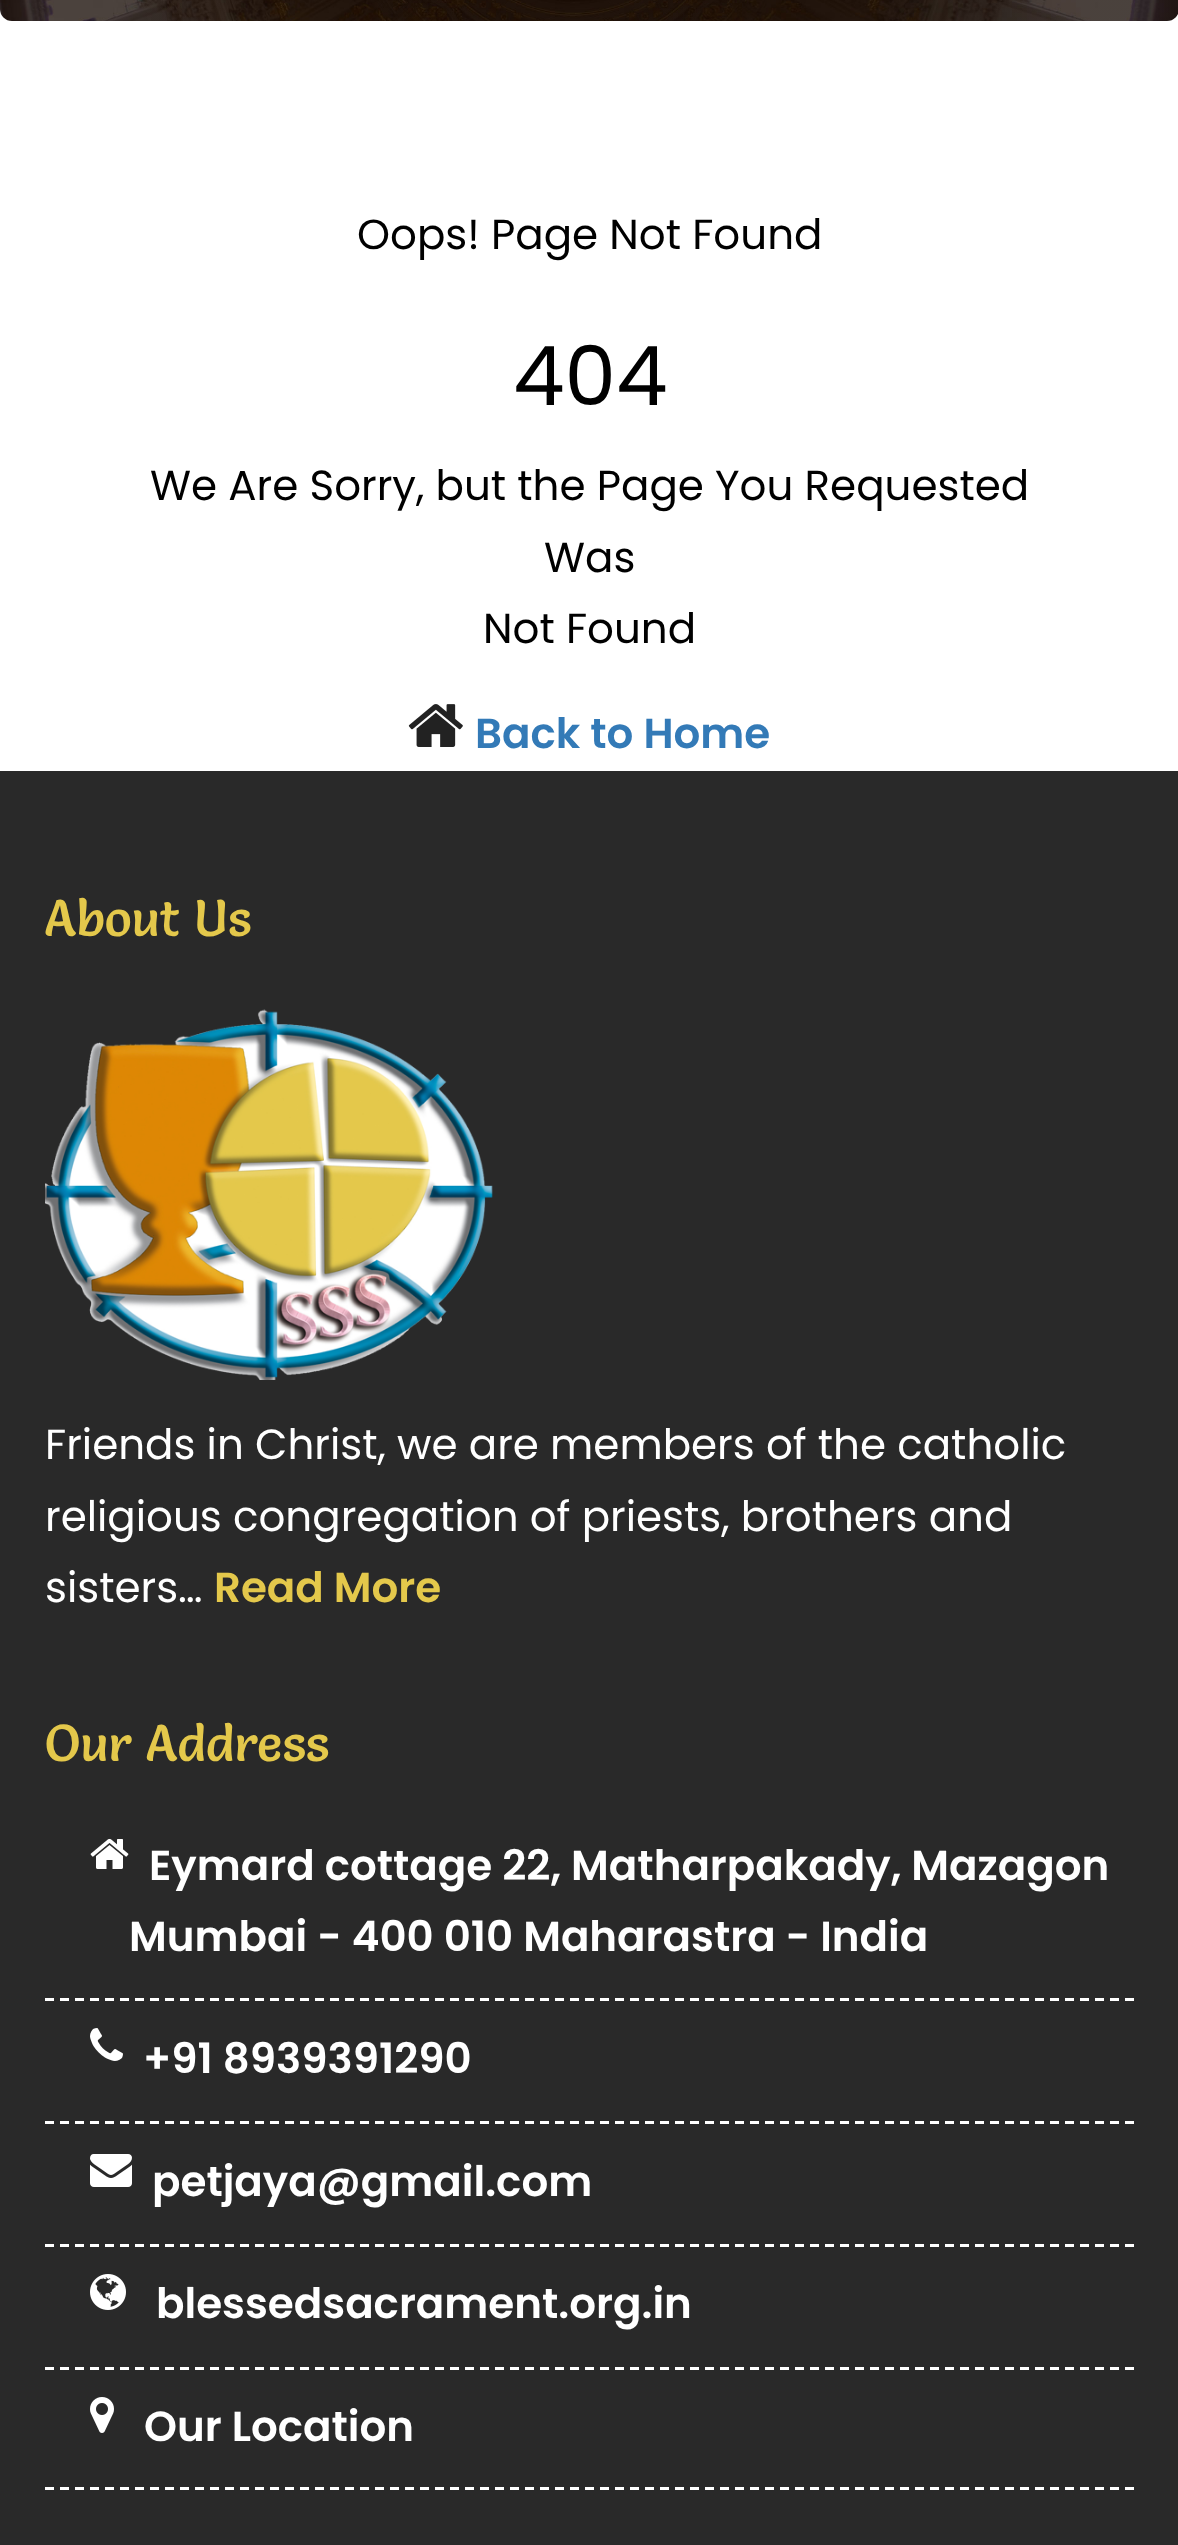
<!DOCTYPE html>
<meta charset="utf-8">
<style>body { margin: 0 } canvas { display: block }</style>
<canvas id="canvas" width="1178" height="2545"></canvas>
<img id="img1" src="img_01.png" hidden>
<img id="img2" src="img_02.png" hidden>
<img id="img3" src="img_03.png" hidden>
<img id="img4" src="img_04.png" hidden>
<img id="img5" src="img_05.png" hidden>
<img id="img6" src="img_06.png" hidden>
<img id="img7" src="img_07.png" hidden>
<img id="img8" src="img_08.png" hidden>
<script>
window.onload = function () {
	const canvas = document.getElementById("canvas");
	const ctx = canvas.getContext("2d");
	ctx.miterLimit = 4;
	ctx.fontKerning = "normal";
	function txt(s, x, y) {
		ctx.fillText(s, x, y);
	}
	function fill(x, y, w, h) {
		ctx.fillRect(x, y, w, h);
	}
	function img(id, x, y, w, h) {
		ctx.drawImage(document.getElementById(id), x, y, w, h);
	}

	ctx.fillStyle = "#FFFFFF";
	fill(0, 0, 1178, 2545);
	img("img1", 0, 0, 1178, 21);
	img("img2", 408, 704, 55, 43);
	ctx.fillStyle = "#292929";
	fill(0, 771, 1178, 1774);
	img("img3", 45, 1009, 448, 371);
	ctx.beginPath();
	ctx.moveTo(45, 1999.5);
	ctx.lineTo(1134, 1999.5);
	ctx.strokeStyle = "#FFFFFF";
	ctx.lineWidth = 3;
	ctx.setLineDash([9, 6]);
	ctx.stroke();
	img("img4", 90, 1838, 39, 31);
	ctx.beginPath();
	ctx.moveTo(45, 2122.5);
	ctx.lineTo(1134, 2122.5);
	ctx.stroke();
	img("img5", 90, 2028, 33, 33);
	ctx.beginPath();
	ctx.moveTo(45, 2245.5);
	ctx.lineTo(1134, 2245.5);
	ctx.stroke();
	img("img6", 90, 2154, 42, 33);
	ctx.beginPath();
	ctx.moveTo(45, 2368.5);
	ctx.lineTo(1134, 2368.5);
	ctx.stroke();
	img("img7", 90, 2274, 36, 36);
	ctx.beginPath();
	ctx.moveTo(45, 2488.5);
	ctx.lineTo(1134, 2488.5);
	ctx.stroke();
	img("img8", 90, 2397, 24, 36);
	ctx.font = "42px Poppins";
	ctx.fillStyle = "#000000";
	txt("Oops! Page Not Found", 357, 249);
	ctx.font = "82px Poppins";
	txt("404", 513, 405);
	ctx.font = "42px Poppins";
	txt("We Are Sorry, but the Page You Requested", 150, 500);
	txt("Was", 544, 572);
	txt("Not Found", 483, 643);
	ctx.font = "600 42px Poppins";
	ctx.fillStyle = "#337AB7";
	txt("Back to Home", 475, 748);
	ctx.font = "51px Salsa";
	ctx.fillStyle = "#E4C84B";
	txt("About Us", 45, 936);
	ctx.font = "42px Poppins";
	ctx.fillStyle = "#FFFFFF";
	txt("Friends in Christ, we are members of the catholic", 45, 1459);
	txt("religious congregation of priests, brothers and", 45, 1531);
	txt("sisters…", 45, 1602);
	ctx.font = "600 42px Poppins";
	ctx.fillStyle = "#E4C84B";
	txt("Read More", 214, 1602);
	ctx.font = "51px Salsa";
	txt("Our Address", 45, 1761);
	ctx.font = "600 42px Poppins";
	ctx.fillStyle = "#FFFFFF";
	txt("Eymard cottage 22, Matharpakady, Mazagon", 149, 1880);
	txt("Mumbai - 400 010 Maharastra - India", 129, 1951);
	txt("+91 8939391290", 143, 2073);
	txt("petjaya@gmail.com", 152, 2196);
	txt("blessedsacrament.org.in", 156, 2318);
	txt("Our Location", 144, 2441);
};
</script>
